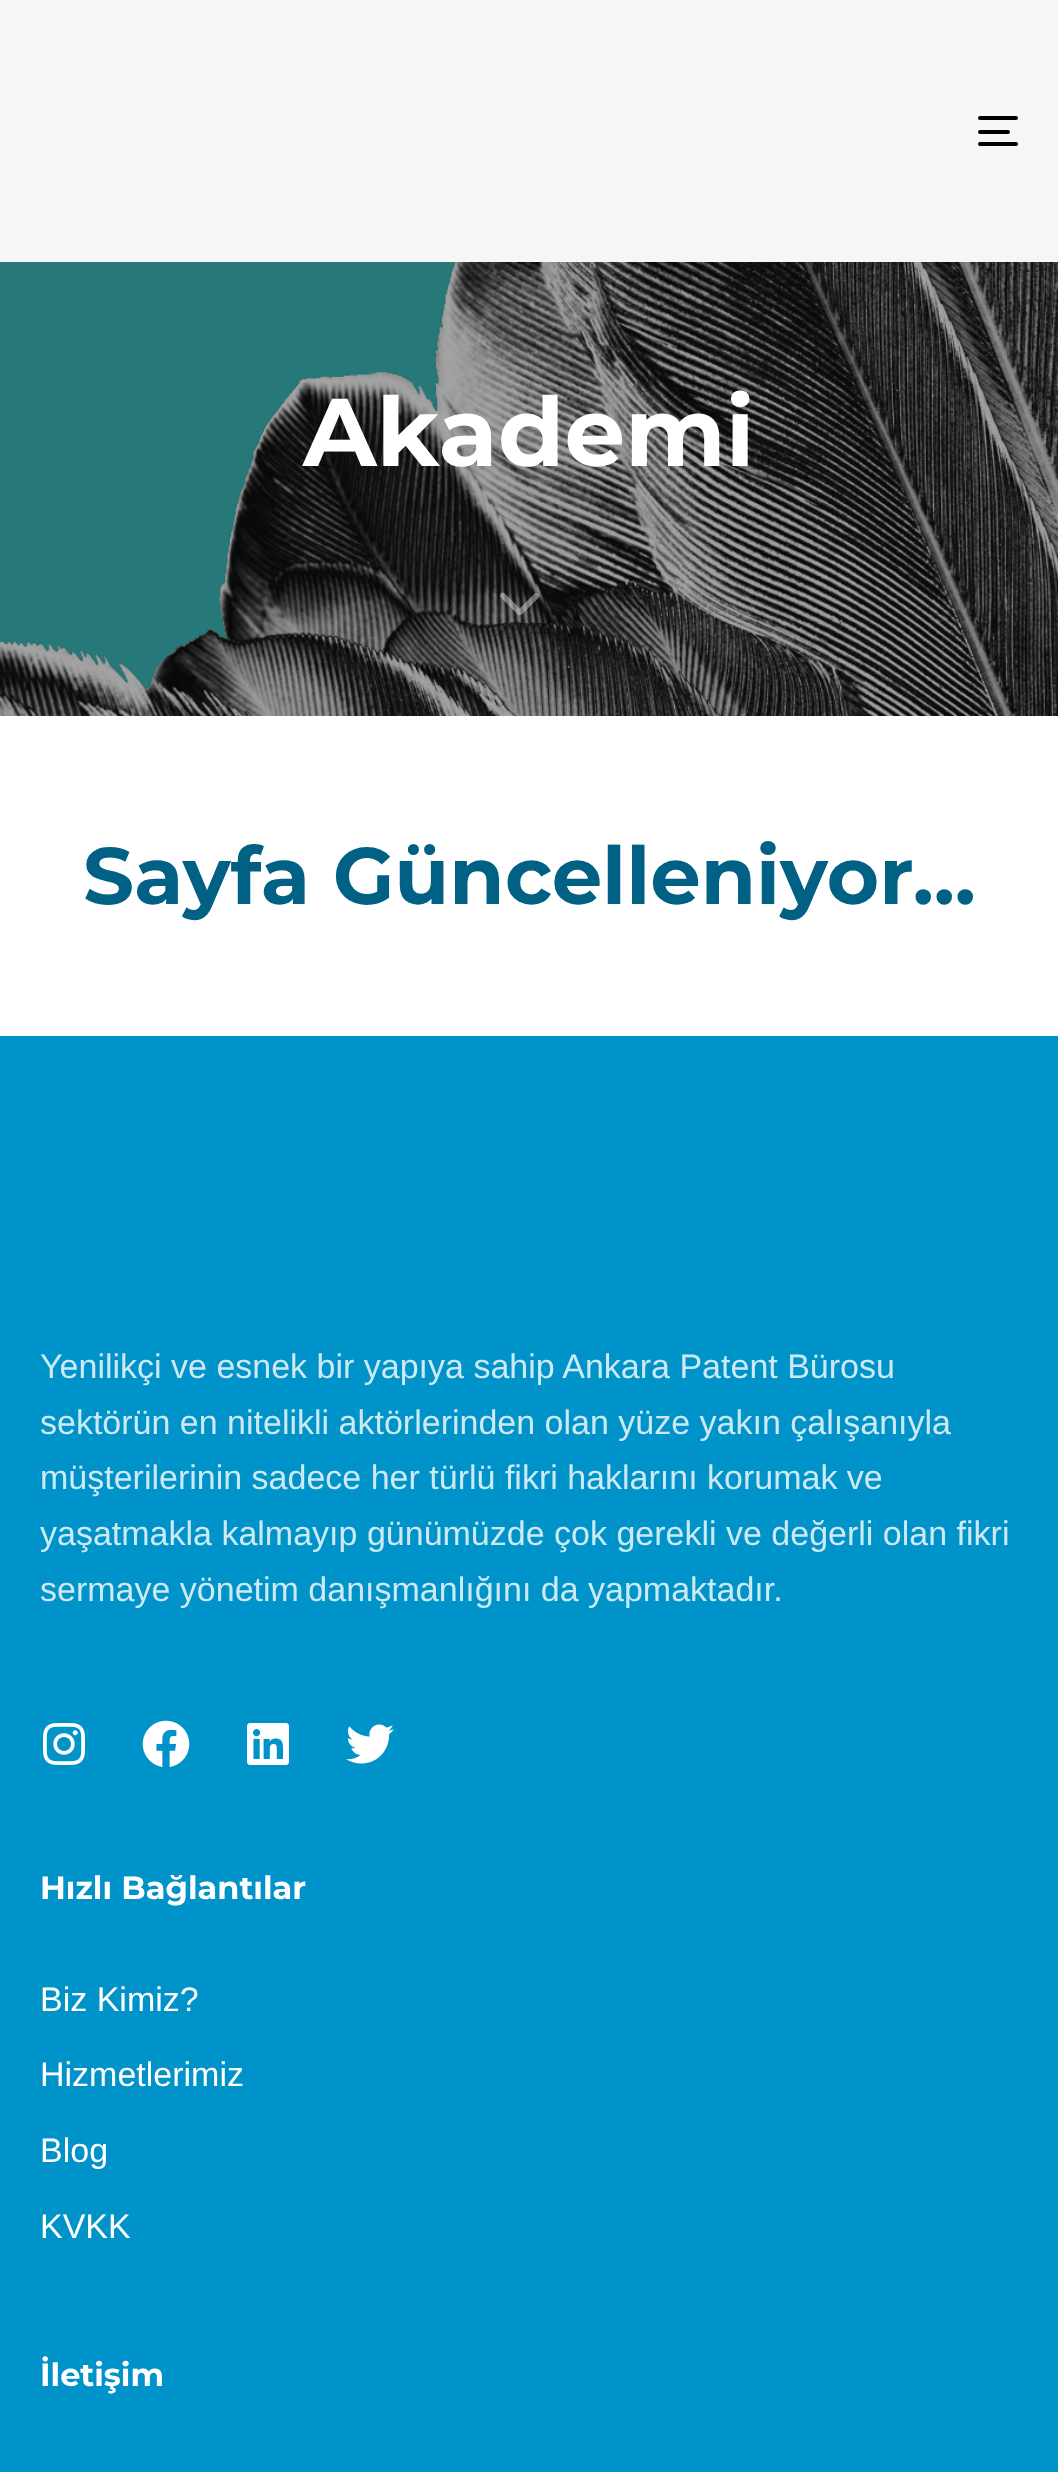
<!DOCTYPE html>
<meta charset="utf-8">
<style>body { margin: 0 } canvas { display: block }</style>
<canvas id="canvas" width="1058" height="2472"></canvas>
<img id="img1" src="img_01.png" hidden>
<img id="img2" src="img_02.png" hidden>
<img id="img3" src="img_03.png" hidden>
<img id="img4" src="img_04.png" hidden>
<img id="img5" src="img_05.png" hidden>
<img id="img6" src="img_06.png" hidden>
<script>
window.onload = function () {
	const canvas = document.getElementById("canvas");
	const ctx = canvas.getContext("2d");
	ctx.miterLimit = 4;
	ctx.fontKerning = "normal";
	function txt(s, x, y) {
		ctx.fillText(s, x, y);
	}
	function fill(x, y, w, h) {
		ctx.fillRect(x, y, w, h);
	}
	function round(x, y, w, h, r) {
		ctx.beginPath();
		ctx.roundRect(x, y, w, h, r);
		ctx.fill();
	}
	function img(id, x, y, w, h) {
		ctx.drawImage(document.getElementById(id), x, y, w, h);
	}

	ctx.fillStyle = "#FFFFFF";
	fill(0, 0, 1058, 2472);
	img("img1", 0, 262, 1058, 454);
	ctx.fillStyle = "#F6F6F6";
	fill(0, 0, 1058, 262);
	ctx.fillStyle = "#000000";
	round(978, 116, 40, 4, 2);
	round(978, 130, 32, 4, 2);
	round(978, 142, 40, 4, 2);
	img("img2", 500, 592, 40, 24);
	ctx.fillStyle = "#0093C9";
	fill(0, 1036, 1058, 1436);
	img("img3", 43, 1723, 42, 42);
	img("img4", 142, 1720, 48, 47);
	img("img5", 247, 1723, 42, 42);
	img("img6", 346, 1724, 48, 40);
	ctx.font = "bold 96px Montserrat";
	ctx.fillStyle = "#FFFFFF";
	txt("Akademi", 303, 466);
	ctx.font = "bold 80px Montserrat";
	ctx.fillStyle = "#006184";
	txt("Sayfa Güncelleniyor...", 83, 904);
	ctx.font = "34px Liberation Sans";
	ctx.fillStyle = "#CCE9F4";
	txt("Yenilikçi ve esnek bir yapıya sahip Ankara Patent Bürosu", 40, 1378);
	txt("sektörün en nitelikli aktörlerinden olan yüze yakın çalışanıyla", 40, 1434);
	txt("müşterilerinin sadece her türlü fikri haklarını korumak ve", 40, 1489);
	txt("yaşatmakla kalmayıp günümüzde çok gerekli ve değerli olan fikri", 40, 1545);
	txt("sermaye yönetim danışmanlığını da yapmaktadır.", 40, 1601);
	ctx.font = "bold 32px Montserrat";
	ctx.fillStyle = "#FFFFFF";
	txt("Hızlı Bağlantılar", 40, 1899);
	ctx.font = "34px Liberation Sans";
	txt("Biz Kimiz?", 40, 2011);
	txt("Hizmetlerimiz", 40, 2086);
	txt("Blog", 40, 2162);
	txt("KVKK", 40, 2238);
	ctx.font = "bold 32px Montserrat";
	txt("İletişim", 40, 2386);
};
</script>
